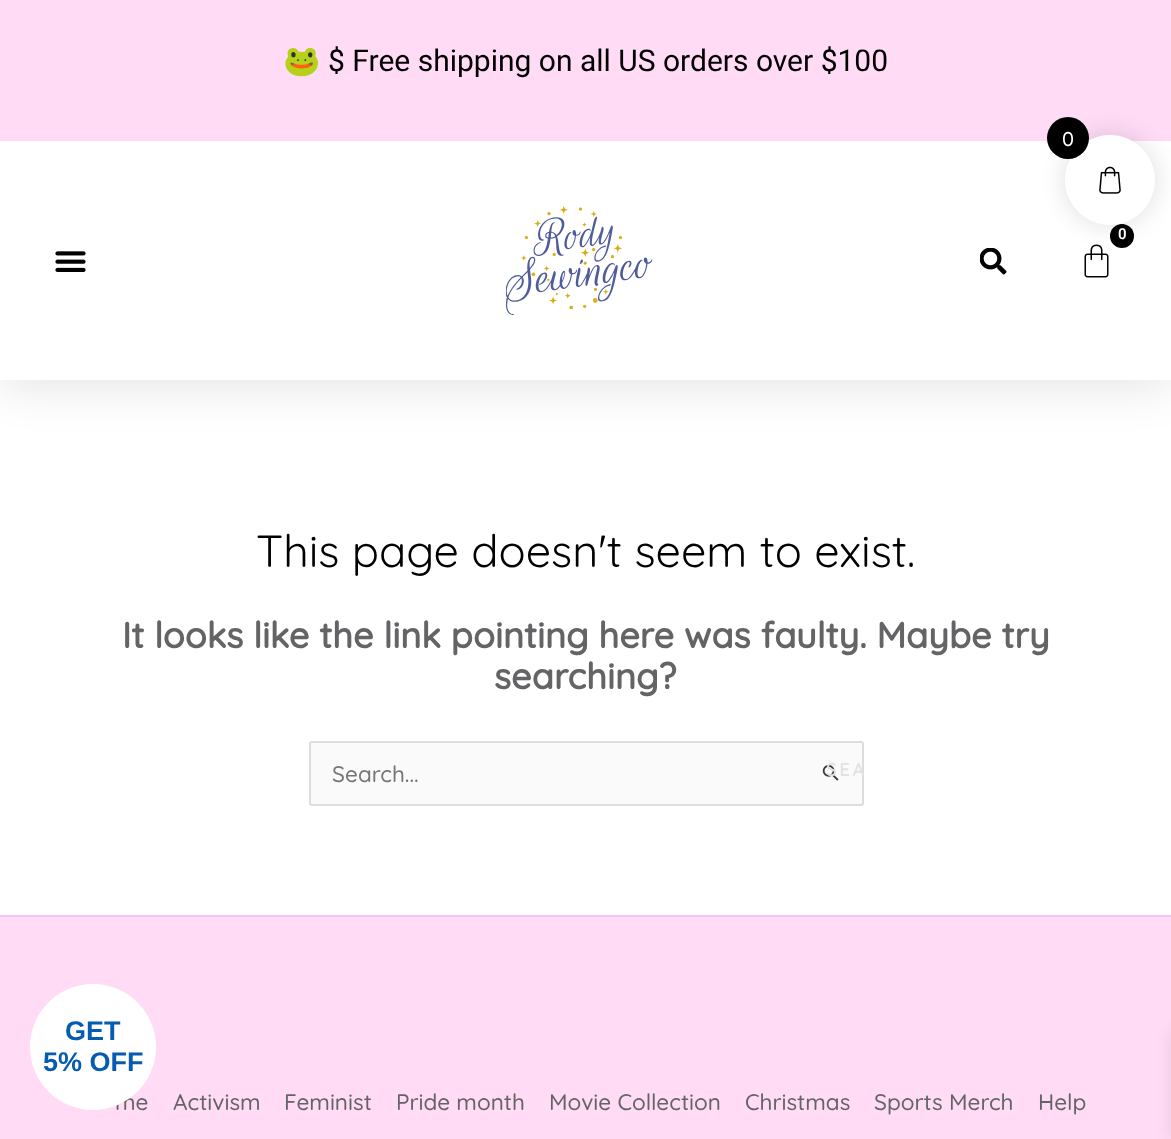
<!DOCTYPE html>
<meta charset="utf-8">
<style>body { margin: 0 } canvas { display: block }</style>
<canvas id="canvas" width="1171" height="1139"></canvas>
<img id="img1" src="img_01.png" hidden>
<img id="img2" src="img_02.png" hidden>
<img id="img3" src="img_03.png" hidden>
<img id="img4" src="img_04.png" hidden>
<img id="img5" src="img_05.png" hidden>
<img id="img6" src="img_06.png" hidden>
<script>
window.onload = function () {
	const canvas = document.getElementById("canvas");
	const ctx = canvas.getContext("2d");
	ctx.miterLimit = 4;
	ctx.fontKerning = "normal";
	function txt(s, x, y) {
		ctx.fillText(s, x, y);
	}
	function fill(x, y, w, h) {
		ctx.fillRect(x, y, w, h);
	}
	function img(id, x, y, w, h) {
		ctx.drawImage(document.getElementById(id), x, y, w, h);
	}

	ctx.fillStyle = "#FFFFFF";
	fill(0, 0, 1171, 1139);
	ctx.save();
	ctx.beginPath();
	ctx.moveTo(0, 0);
	ctx.lineTo(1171, 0);
	ctx.lineTo(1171, 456);
	ctx.lineTo(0, 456);
	ctx.closePath();
	ctx.moveTo(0, 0);
	ctx.lineTo(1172, 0);
	ctx.lineTo(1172, 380);
	ctx.lineTo(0, 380);
	ctx.closePath();
	ctx.clip("evenodd");
	ctx.fillStyle = "rgba(0, 0, 0, 0.1)";
	ctx.filter = "blur(22.5px)";
	ctx.beginPath();
	ctx.rect(0, 8, 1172, 379);
	ctx.fill();
	ctx.filter = "none";
	ctx.restore();
	ctx.fillStyle = "#FFDBF6";
	fill(0, 0, 1171, 141);
	img("img1", 55, 251, 31, 21);
	img("img2", 506, 206, 147, 109);
	ctx.fillStyle = "#000000";
	ctx.beginPath();
	ctx.arc(1122, 236, 12, 0, Math.PI * 2);
	ctx.fill();
	img("img3", 1084, 244, 25, 34);
	img("img4", 980, 248, 27, 27);
	ctx.fillStyle = "#FAFAFA";
	ctx.beginPath();
	ctx.roundRect(310, 742, 553, 63, 2);
	ctx.fill();
	ctx.strokeStyle = "#DDDDDD";
	ctx.lineWidth = 2;
	ctx.stroke();
	img("img5", 822, 765, 17, 16);
	ctx.fillStyle = "#FFDBF6";
	fill(0, 917, 1171, 222);
	ctx.fillStyle = "#E7C8F7";
	fill(0, 915, 1171, 2);
	ctx.fillStyle = "rgba(0, 0, 0, 0.1)";
	ctx.filter = "blur(11px)";
	ctx.beginPath();
	ctx.roundRect(1062, 132, 96, 96, 48);
	ctx.fill();
	ctx.filter = "none";
	ctx.fillStyle = "#FFFFFF";
	ctx.beginPath();
	ctx.arc(1110, 180, 45, 0, Math.PI * 2);
	ctx.fill();
	ctx.fillStyle = "#000000";
	ctx.beginPath();
	ctx.arc(1068, 138, 21, 0, Math.PI * 2);
	ctx.fill();
	img("img6", 1099, 166, 22, 28);
	ctx.fillStyle = "rgba(0, 0, 0, 0.1)";
	ctx.filter = "blur(7.5px)";
	ctx.beginPath();
	ctx.rect(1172, 1032, 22, 107);
	ctx.fill();
	ctx.filter = "none";
	ctx.font = "30px Noto Color Emoji";
	ctx.fillStyle = "#000000";
	txt("🐸", 283, 71);
	ctx.font = "30px Roboto";
	txt("$ Free shipping on all US orders over $100", 328, 71);
	ctx.font = "600 15px Roboto";
	ctx.fillStyle = "#FFFFFF";
	txt("0", 1118, 239);
	ctx.font = "45px Quicksand";
	ctx.fillStyle = "#000000";
	txt("This page doesn't seem to exist.", 256, 567);
	ctx.font = "bold 36px Quicksand";
	ctx.fillStyle = "#646467";
	txt("It looks like the link pointing here was faulty. Maybe try", 122, 648);
	txt("searching?", 494, 689);
	ctx.font = "500 22.5px Quicksand";
	ctx.fillStyle = "#757575";
	txt("Search...", 332, 782);
	ctx.letterSpacing = "3px";
	ctx.font = "bold 18px Quicksand";
	ctx.fillStyle = "#E2E2E2";
	txt("SEA", 826, 776);
	ctx.letterSpacing = "0px";
	ctx.font = "500 22.5px Quicksand";
	ctx.fillStyle = "#646467";
	txt("me", 115, 1110);
	txt("Activism", 173, 1110);
	txt("Feminist", 284, 1110);
	txt("Pride month", 396, 1110);
	txt("Movie Collection", 549, 1110);
	txt("Christmas", 745, 1110);
	txt("Sports Merch", 874, 1110);
	txt("Help", 1038, 1110);
	ctx.font = "500 20px Quicksand";
	ctx.fillStyle = "#FFFFFF";
	txt("0", 1062, 146);
	ctx.beginPath();
	ctx.arc(93, 1047, 63, 0, Math.PI * 2);
	ctx.fill();
	ctx.font = "bold 27px Liberation Sans";
	ctx.fillStyle = "#075CB0";
	txt("GET", 65, 1040);
	txt("5% OFF", 43, 1071);
};
</script>
